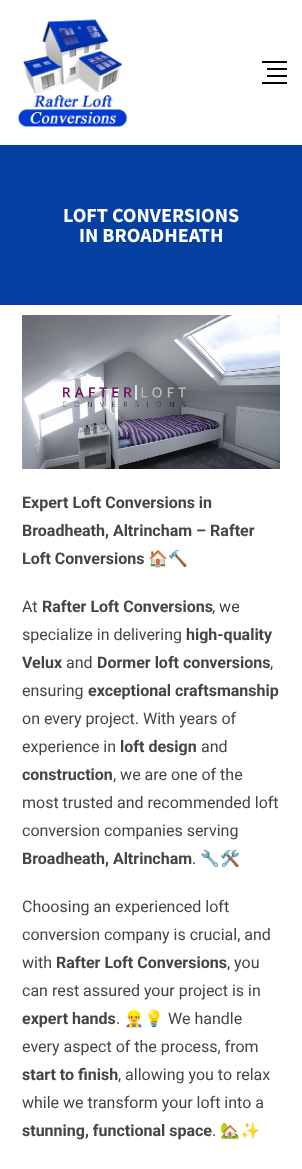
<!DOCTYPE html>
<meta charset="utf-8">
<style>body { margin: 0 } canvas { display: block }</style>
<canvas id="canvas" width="302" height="1169"></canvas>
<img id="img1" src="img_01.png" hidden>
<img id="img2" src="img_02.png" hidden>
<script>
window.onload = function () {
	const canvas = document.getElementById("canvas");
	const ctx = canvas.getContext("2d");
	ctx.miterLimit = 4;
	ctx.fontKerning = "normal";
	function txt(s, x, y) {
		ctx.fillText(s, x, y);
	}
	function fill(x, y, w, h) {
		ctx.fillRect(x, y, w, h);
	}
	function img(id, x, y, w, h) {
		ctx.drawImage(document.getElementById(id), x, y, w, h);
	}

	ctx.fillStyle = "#FFFFFF";
	fill(0, 0, 302, 1169);
	img("img1", 18, 19, 110, 108);
	ctx.fillStyle = "#000000";
	fill(262, 61, 25, 2);
	fill(267, 68, 20, 2);
	fill(267, 75, 20, 2);
	fill(262, 82, 25, 2);
	ctx.fillStyle = "#053FA2";
	fill(0, 145, 302, 160);
	img("img2", 22, 315, 258, 154);
	ctx.font = "bold 20px Source Sans Pro";
	ctx.fillStyle = "#FFFFFF";
	txt("LOFT CONVERSIONS", 63, 222);
	txt("IN BROADHEATH", 79, 242);
	ctx.font = "bold 16px Roboto";
	ctx.fillStyle = "#444444";
	txt("Expert Loft Conversions in", 22, 508);
	txt("Broadheath, Altrincham – Rafter", 22, 536);
	txt("Loft Conversions", 22, 564);
	ctx.font = "bold 16px Noto Color Emoji";
	txt("🏠🔨", 148, 564);
	ctx.font = "16px Roboto";
	txt("At", 22, 612);
	ctx.font = "bold 16px Roboto";
	txt("Rafter Loft Conversions", 42, 612);
	ctx.font = "16px Roboto";
	txt(", we", 212, 612);
	txt("specialize in delivering", 22, 640);
	ctx.font = "bold 16px Roboto";
	txt("high-quality", 186, 640);
	txt("Velux", 22, 668);
	ctx.font = "16px Roboto";
	txt("and", 66, 668);
	ctx.font = "bold 16px Roboto";
	txt("Dormer loft conversions", 97, 668);
	ctx.font = "16px Roboto";
	txt(",", 270, 668);
	txt("ensuring", 22, 696);
	ctx.font = "bold 16px Roboto";
	txt("exceptional craftsmanship", 88, 696);
	ctx.font = "16px Roboto";
	txt("on every project. With years of", 22, 724);
	txt("experience in", 22, 752);
	ctx.font = "bold 16px Roboto";
	txt("loft design", 120, 752);
	ctx.font = "16px Roboto";
	txt("and", 201, 752);
	ctx.font = "bold 16px Roboto";
	txt("construction", 22, 780);
	ctx.font = "16px Roboto";
	txt(", we are one of the", 113, 780);
	txt("most trusted and recommended loft", 22, 808);
	txt("conversion companies serving", 22, 836);
	ctx.font = "bold 16px Roboto";
	txt("Broadheath, Altrincham", 22, 864);
	ctx.font = "16px Roboto";
	txt(".", 192, 864);
	ctx.font = "16px Noto Color Emoji";
	txt("🔧🛠️", 200, 864);
	ctx.font = "16px Roboto";
	txt("Choosing an experienced loft", 22, 912);
	txt("conversion company is crucial, and", 22, 940);
	txt("with", 22, 968);
	ctx.font = "bold 16px Roboto";
	txt("Rafter Loft Conversions", 56, 968);
	ctx.font = "16px Roboto";
	txt(", you", 227, 968);
	txt("can rest assured your project is in", 22, 996);
	ctx.font = "bold 16px Roboto";
	txt("expert hands", 22, 1024);
	ctx.font = "16px Roboto";
	txt(".", 116, 1024);
	ctx.font = "16px Noto Color Emoji";
	txt("👷‍♂️💡", 124, 1024);
	ctx.font = "16px Roboto";
	txt("We handle", 168, 1024);
	txt("every aspect of the process, from", 22, 1052);
	ctx.font = "bold 16px Roboto";
	txt("start to finish", 22, 1080);
	ctx.font = "16px Roboto";
	txt(", allowing you to relax", 118, 1080);
	txt("while we transform your loft into a", 22, 1108);
	ctx.font = "bold 16px Roboto";
	txt("stunning, functional space", 22, 1136);
	ctx.font = "16px Roboto";
	txt(".", 212, 1136);
	ctx.font = "16px Noto Color Emoji";
	txt("🏡✨", 220, 1136);
};
</script>
